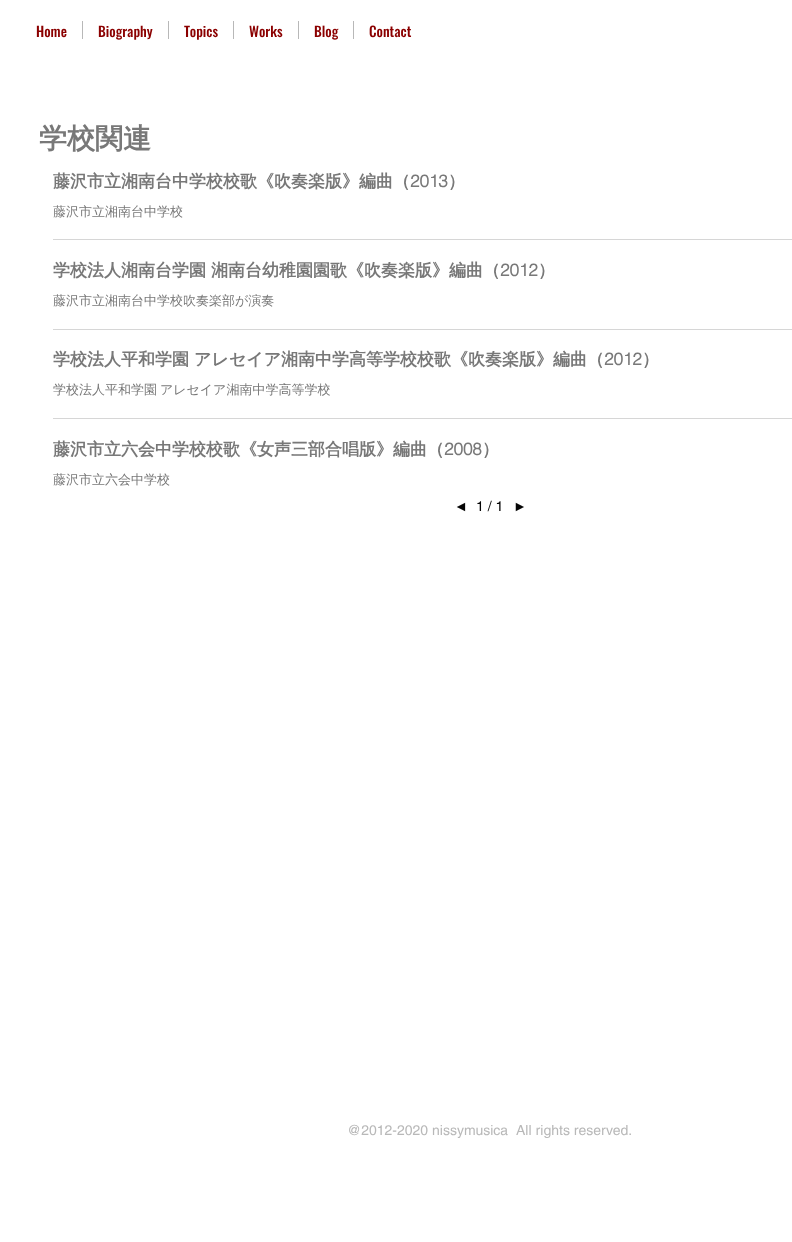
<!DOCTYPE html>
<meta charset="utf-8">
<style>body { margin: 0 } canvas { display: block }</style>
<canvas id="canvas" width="792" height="1242"></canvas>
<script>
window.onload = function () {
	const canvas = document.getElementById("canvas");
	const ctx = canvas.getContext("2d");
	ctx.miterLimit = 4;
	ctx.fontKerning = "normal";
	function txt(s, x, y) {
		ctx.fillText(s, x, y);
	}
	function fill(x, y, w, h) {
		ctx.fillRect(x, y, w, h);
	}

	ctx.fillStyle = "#FFFFFF";
	fill(0, 0, 792, 1242);
	ctx.fillStyle = "#B8B8B8";
	fill(82, 21, 1, 18);
	fill(168, 21, 1, 18);
	fill(233, 21, 1, 18);
	fill(298, 21, 1, 18);
	fill(353, 21, 1, 18);
	ctx.fillStyle = "#D6D6D6";
	fill(53, 239, 739, 1);
	fill(53, 329, 739, 1);
	fill(53, 418, 739, 1);
	ctx.font = "500 14px Oswald";
	ctx.fillStyle = "#8B0000";
	txt("Home", 36, 37);
	txt("Biography", 98, 37);
	txt("Topics", 184, 37);
	txt("Works", 249, 37);
	txt("Blog", 314, 37);
	txt("Contact", 369, 37);
	ctx.font = "bold 28px WenQuanYi Zen Hei";
	ctx.fillStyle = "#787878";
	txt("学校関連", 39, 148);
	ctx.font = "bold 17px WenQuanYi Zen Hei";
	txt("藤沢市立湘南台中学校校歌《吹奏楽版》編曲（", 53, 187);
	ctx.font = "bold 17px helvetica";
	txt("2013", 410, 187);
	ctx.font = "bold 17px WenQuanYi Zen Hei";
	txt("）", 448, 187);
	ctx.font = "500 13px WenQuanYi Zen Hei";
	txt("藤沢市立湘南台中学校", 53, 216);
	ctx.font = "bold 17px WenQuanYi Zen Hei";
	txt("学校法人湘南台学園 湘南台幼稚園園歌《吹奏楽版》編曲（", 53, 276);
	ctx.font = "bold 17px helvetica";
	txt("2012", 500, 276);
	ctx.font = "bold 17px WenQuanYi Zen Hei";
	txt("）", 538, 276);
	ctx.font = "500 13px WenQuanYi Zen Hei";
	txt("藤沢市立湘南台中学校吹奏楽部が演奏", 53, 305);
	ctx.font = "bold 17px WenQuanYi Zen Hei";
	txt("学校法人平和学園 アレセイア湘南中学高等学校校歌《吹奏楽版》編曲（", 53, 365);
	ctx.font = "bold 17px helvetica";
	txt("2012", 604, 365);
	ctx.font = "bold 17px WenQuanYi Zen Hei";
	txt("）", 642, 365);
	ctx.wordSpacing = "-1px";
	ctx.font = "500 13px WenQuanYi Zen Hei";
	txt("学校法人平和学園 アレセイア湘南中学高等学校", 53, 394);
	ctx.wordSpacing = "0px";
	ctx.font = "bold 17px WenQuanYi Zen Hei";
	txt("藤沢市立六会中学校校歌《女声三部合唱版》編曲（", 53, 455);
	ctx.font = "bold 17px helvetica";
	txt("2008", 444, 455);
	ctx.font = "bold 17px WenQuanYi Zen Hei";
	txt("）", 482, 455);
	ctx.font = "500 13px WenQuanYi Zen Hei";
	txt("藤沢市立六会中学校", 53, 484);
	ctx.font = "14px Liberation Sans";
	ctx.fillStyle = "#050505";
	txt("◄", 454, 511);
	ctx.font = "14px helvetica";
	txt("1 / 1", 476, 511);
	ctx.font = "14px Liberation Sans";
	txt("►", 513, 511);
	ctx.font = "14px helvetica";
	ctx.fillStyle = "#B8B8B8";
	txt("@2012-2020 nissymusica", 347, 1135);
	txt("All rights reserved.", 516, 1135);
};
</script>
